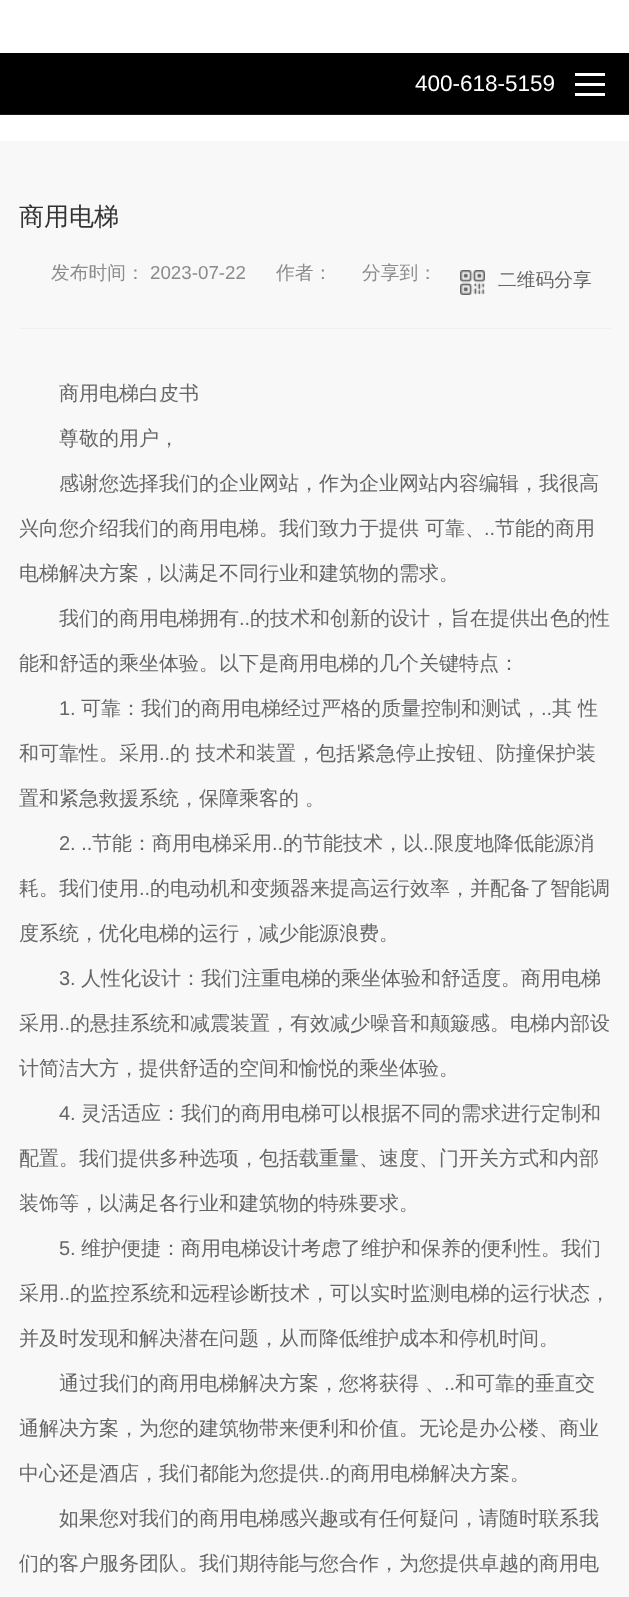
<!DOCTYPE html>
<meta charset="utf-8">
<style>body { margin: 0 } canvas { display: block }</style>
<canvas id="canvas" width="629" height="1597"></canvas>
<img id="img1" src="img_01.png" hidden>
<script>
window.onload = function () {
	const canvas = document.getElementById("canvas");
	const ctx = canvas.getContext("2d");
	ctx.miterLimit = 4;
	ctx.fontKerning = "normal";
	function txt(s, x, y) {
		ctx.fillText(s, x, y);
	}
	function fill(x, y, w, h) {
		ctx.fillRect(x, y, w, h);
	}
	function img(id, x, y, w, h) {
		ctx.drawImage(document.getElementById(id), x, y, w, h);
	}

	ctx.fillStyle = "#FFFFFF";
	fill(0, 0, 629, 1597);
	ctx.fillStyle = "#000000";
	fill(0, 53, 629, 61);
	ctx.fillStyle = "#FFFFFF";
	fill(575, 73, 30, 3);
	fill(575, 83, 30, 3);
	fill(575, 93, 30, 3);
	ctx.fillStyle = "#1A1A1A";
	fill(0, 114, 629, 1);
	ctx.fillStyle = "#F8F8F8";
	fill(0, 141, 629, 1456);
	ctx.fillStyle = "#F2F0F0";
	fill(19, 328, 592, 1);
	img("img1", 460, 270, 25, 25);
	ctx.font = "22.5px Liberation Sans";
	ctx.fillStyle = "#FFFFFF";
	txt("400-618-5159", 415, 91);
	ctx.font = "500 25px WenQuanYi Zen Hei";
	ctx.fillStyle = "#333333";
	txt("商用电梯", 19, 225);
	ctx.font = "500 18.75px WenQuanYi Zen Hei";
	ctx.fillStyle = "#8C8C8C";
	txt("发布时间：", 51, 279);
	ctx.font = "18.75px Liberation Sans";
	txt("2023-07-22", 150, 279);
	ctx.font = "500 18.75px WenQuanYi Zen Hei";
	txt("作者：", 276, 279);
	txt("分享到：", 362, 279);
	ctx.fillStyle = "#666666";
	txt("二维码分享", 498, 286);
	ctx.font = "500 20px WenQuanYi Zen Hei";
	txt("商用电梯白皮书", 59, 400);
	txt("尊敬的用户，", 59, 445);
	txt("感谢您选择我们的企业网站，作为企业网站内容编辑，我很高", 59, 490);
	txt("兴向您介绍我们的商用电梯。我们致力于提供 可靠、", 19, 535);
	ctx.font = "20px Liberation Sans";
	txt("..", 484, 535);
	ctx.font = "500 20px WenQuanYi Zen Hei";
	txt("节能的商用", 495, 535);
	txt("电梯解决方案，以满足不同行业和建筑物的需求。", 19, 580);
	txt("我们的商用电梯拥有", 59, 625);
	ctx.font = "20px Liberation Sans";
	txt("..", 239, 625);
	ctx.font = "500 20px WenQuanYi Zen Hei";
	txt("的技术和创新的设计，旨在提供出色的性", 250, 625);
	txt("能和舒适的乘坐体验。以下是商用电梯的几个关键特点：", 19, 670);
	ctx.font = "20px Liberation Sans";
	txt("1.", 59, 715);
	ctx.font = "500 20px WenQuanYi Zen Hei";
	txt("可靠：我们的商用电梯经过严格的质量控制和测试，", 81, 715);
	ctx.font = "20px Liberation Sans";
	txt("..", 541, 715);
	ctx.font = "500 20px WenQuanYi Zen Hei";
	txt("其 性", 552, 715);
	txt("和可靠性。采用", 19, 760);
	ctx.font = "20px Liberation Sans";
	txt("..", 159, 760);
	ctx.font = "500 20px WenQuanYi Zen Hei";
	txt("的 技术和装置，包括紧急停止按钮、防撞保护装", 170, 760);
	txt("置和紧急救援系统，保障乘客的 。", 19, 805);
	ctx.font = "20px Liberation Sans";
	txt("2. ..", 59, 850);
	ctx.font = "500 20px WenQuanYi Zen Hei";
	txt("节能：商用电梯采用", 92, 850);
	ctx.font = "20px Liberation Sans";
	txt("..", 272, 850);
	ctx.font = "500 20px WenQuanYi Zen Hei";
	txt("的节能技术，以", 283, 850);
	ctx.font = "20px Liberation Sans";
	txt("..", 423, 850);
	ctx.font = "500 20px WenQuanYi Zen Hei";
	txt("限度地降低能源消", 434, 850);
	txt("耗。我们使用", 19, 895);
	ctx.font = "20px Liberation Sans";
	txt("..", 139, 895);
	ctx.font = "500 20px WenQuanYi Zen Hei";
	txt("的电动机和变频器来提高运行效率，并配备了智能调", 150, 895);
	txt("度系统，优化电梯的运行，减少能源浪费。", 19, 940);
	ctx.font = "20px Liberation Sans";
	txt("3.", 59, 985);
	ctx.font = "500 20px WenQuanYi Zen Hei";
	txt("人性化设计：我们注重电梯的乘坐体验和舒适度。商用电梯", 81, 985);
	txt("采用", 19, 1030);
	ctx.font = "20px Liberation Sans";
	txt("..", 59, 1030);
	ctx.font = "500 20px WenQuanYi Zen Hei";
	txt("的悬挂系统和减震装置，有效减少噪音和颠簸感。电梯内部设", 70, 1030);
	txt("计简洁大方，提供舒适的空间和愉悦的乘坐体验。", 19, 1075);
	ctx.font = "20px Liberation Sans";
	txt("4.", 59, 1120);
	ctx.font = "500 20px WenQuanYi Zen Hei";
	txt("灵活适应：我们的商用电梯可以根据不同的需求进行定制和", 81, 1120);
	txt("配置。我们提供多种选项，包括载重量、速度、门开关方式和内部", 19, 1165);
	txt("装饰等，以满足各行业和建筑物的特殊要求。", 19, 1210);
	ctx.font = "20px Liberation Sans";
	txt("5.", 59, 1255);
	ctx.font = "500 20px WenQuanYi Zen Hei";
	txt("维护便捷：商用电梯设计考虑了维护和保养的便利性。我们", 81, 1255);
	txt("采用", 19, 1300);
	ctx.font = "20px Liberation Sans";
	txt("..", 59, 1300);
	ctx.font = "500 20px WenQuanYi Zen Hei";
	txt("的监控系统和远程诊断技术，可以实时监测电梯的运行状态，", 70, 1300);
	txt("并及时发现和解决潜在问题，从而降低维护成本和停机时间。", 19, 1345);
	txt("通过我们的商用电梯解决方案，您将获得 、", 59, 1390);
	ctx.font = "20px Liberation Sans";
	txt("..", 444, 1390);
	ctx.font = "500 20px WenQuanYi Zen Hei";
	txt("和可靠的垂直交", 455, 1390);
	txt("通解决方案，为您的建筑物带来便利和价值。无论是办公楼、商业", 19, 1435);
	txt("中心还是酒店，我们都能为您提供", 19, 1480);
	ctx.font = "20px Liberation Sans";
	txt("..", 319, 1480);
	ctx.font = "500 20px WenQuanYi Zen Hei";
	txt("的商用电梯解决方案。", 330, 1480);
	txt("如果您对我们的商用电梯感兴趣或有任何疑问，请随时联系我", 59, 1525);
	txt("们的客户服务团队。我们期待能与您合作，为您提供卓越的商用电", 19, 1570);
};
</script>
